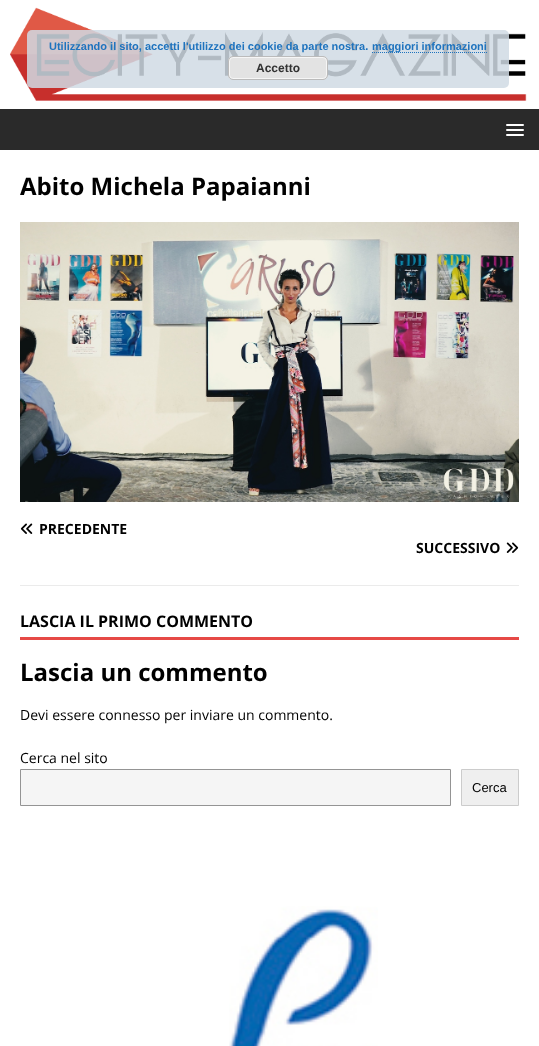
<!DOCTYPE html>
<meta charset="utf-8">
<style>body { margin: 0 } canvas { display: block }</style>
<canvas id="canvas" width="539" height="1046"></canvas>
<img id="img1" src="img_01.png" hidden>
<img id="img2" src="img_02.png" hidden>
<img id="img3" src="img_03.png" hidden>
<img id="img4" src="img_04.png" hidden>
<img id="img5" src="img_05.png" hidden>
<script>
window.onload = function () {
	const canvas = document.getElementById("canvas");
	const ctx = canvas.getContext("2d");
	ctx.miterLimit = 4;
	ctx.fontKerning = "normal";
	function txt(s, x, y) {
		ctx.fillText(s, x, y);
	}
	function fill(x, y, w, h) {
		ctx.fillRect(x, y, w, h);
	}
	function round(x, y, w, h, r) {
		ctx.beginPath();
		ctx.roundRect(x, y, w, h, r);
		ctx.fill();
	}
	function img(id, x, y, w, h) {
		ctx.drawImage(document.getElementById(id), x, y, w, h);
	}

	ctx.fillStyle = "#FFFFFF";
	fill(0, 0, 539, 1046);
	img("img1", 10, 7, 517, 94);
	ctx.fillStyle = "rgba(208, 218, 228, 0.85)";
	round(27, 30, 482, 58, 5);
	ctx.beginPath();
	ctx.moveTo(372, 52.5);
	ctx.lineTo(487, 52.5);
	ctx.strokeStyle = "#1E73BE";
	ctx.setLineDash([1, 1]);
	ctx.stroke();
	ctx.fillStyle = "#E3E3E3";
	round(228, 56, 100, 24, 5);
	ctx.beginPath();
	ctx.roundRect(229.5, 57.5, 97, 21, 3.5);
	ctx.strokeStyle = "#F6F6F6";
	ctx.setLineDash([]);
	ctx.stroke();
	ctx.beginPath();
	ctx.roundRect(228.5, 56.5, 99, 23, 4.5);
	ctx.strokeStyle = "#BBBBBB";
	ctx.stroke();
	ctx.fillStyle = "#2A2A2A";
	fill(0, 109, 539, 41);
	ctx.fillStyle = "#FFFFFF";
	round(506, 124, 18, 2, 1);
	round(506, 129, 18, 2, 1);
	round(506, 134, 18, 2, 1);
	img("img2", 20, 222, 499, 280);
	ctx.fillStyle = "#EBEBEB";
	fill(20, 585, 499, 1);
	img("img3", 20, 523, 13, 11);
	img("img4", 506, 542, 13, 11);
	ctx.fillStyle = "#E64946";
	fill(20, 637, 499, 3);
	ctx.fillStyle = "#F5F5F5";
	ctx.beginPath();
	ctx.rect(20.5, 769.5, 430, 36);
	ctx.fill();
	ctx.strokeStyle = "#949494";
	ctx.stroke();
	ctx.fillStyle = "#EFEFEF";
	ctx.beginPath();
	ctx.rect(461.5, 769.5, 57, 36);
	ctx.fill();
	ctx.strokeStyle = "#CCCCCC";
	ctx.stroke();
	img("img5", 229, 906, 149, 140);
	ctx.font = "bold 11px Liberation Sans";
	ctx.fillStyle = "#1E73BE";
	txt("Utilizzando il sito, accetti l'utilizzo dei cookie da parte nostra.", 49, 50);
	txt("maggiori informazioni", 372, 50);
	ctx.font = "bold 12px Liberation Sans";
	ctx.fillStyle = "#333333";
	txt("Accetto", 256, 72);
	ctx.font = "bold 24px Open Sans";
	ctx.fillStyle = "#000000";
	txt("Abito Michela Papaianni", 20, 195);
	ctx.font = "bold 14px Open Sans";
	txt("PRECEDENTE", 39, 534);
	txt("SUCCESSIVO", 416, 553);
	ctx.font = "bold 16px Open Sans";
	txt("LASCIA IL PRIMO COMMENTO", 20, 627);
	ctx.font = "bold 24px Open Sans";
	txt("Lascia un commento", 20, 681);
	ctx.font = "14px Open Sans";
	txt("Devi essere connesso per inviare un commento.", 20, 720);
	txt("Cerca nel sito", 20, 763);
	ctx.font = "13px Liberation Sans";
	txt("Cerca", 472, 792);
};
</script>
